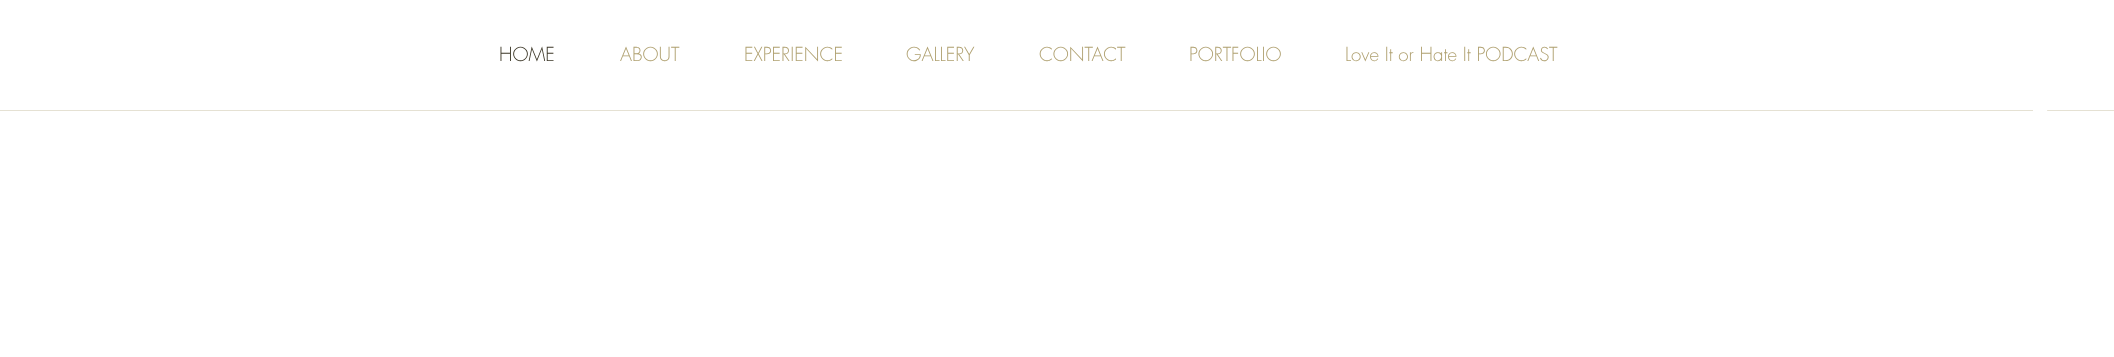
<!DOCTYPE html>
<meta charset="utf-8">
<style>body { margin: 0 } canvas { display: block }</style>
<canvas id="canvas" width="2114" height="357"></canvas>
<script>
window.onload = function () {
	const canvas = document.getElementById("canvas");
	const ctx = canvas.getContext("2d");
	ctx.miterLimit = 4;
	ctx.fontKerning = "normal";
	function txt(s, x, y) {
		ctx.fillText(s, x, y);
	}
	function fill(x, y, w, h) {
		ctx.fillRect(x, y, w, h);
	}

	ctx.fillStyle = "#FFFFFF";
	fill(0, 0, 2114, 357);
	ctx.fillStyle = "#E5E1D3";
	fill(0, 110, 2114, 1);
	ctx.fillStyle = "#FFFFFF";
	ctx.beginPath();
	ctx.arc(2040, 110, 6, 0, Math.PI * 2);
	ctx.fill();
	ctx.save();
	ctx.beginPath();
	ctx.rect(2033, 103, 15, 15);
	ctx.clip();
	ctx.beginPath();
	ctx.arc(2040, 110, 6, 0, Math.PI * 2);
	ctx.strokeStyle = "#FFFFFF";
	ctx.lineWidth = 2.5;
	ctx.stroke();
	ctx.restore();
	ctx.font = "300 18.75px futura";
	ctx.fillStyle = "#3B3626";
	txt("HOME", 499, 61);
	ctx.fillStyle = "#B0A171";
	txt("ABOUT", 620, 61);
	txt("EXPERIENCE", 744, 61);
	txt("GALLERY", 906, 61);
	txt("CONTACT", 1039, 61);
	txt("PORTFOLIO", 1189, 61);
	txt("Love It or Hate It PODCAST", 1345, 61);
};
</script>
